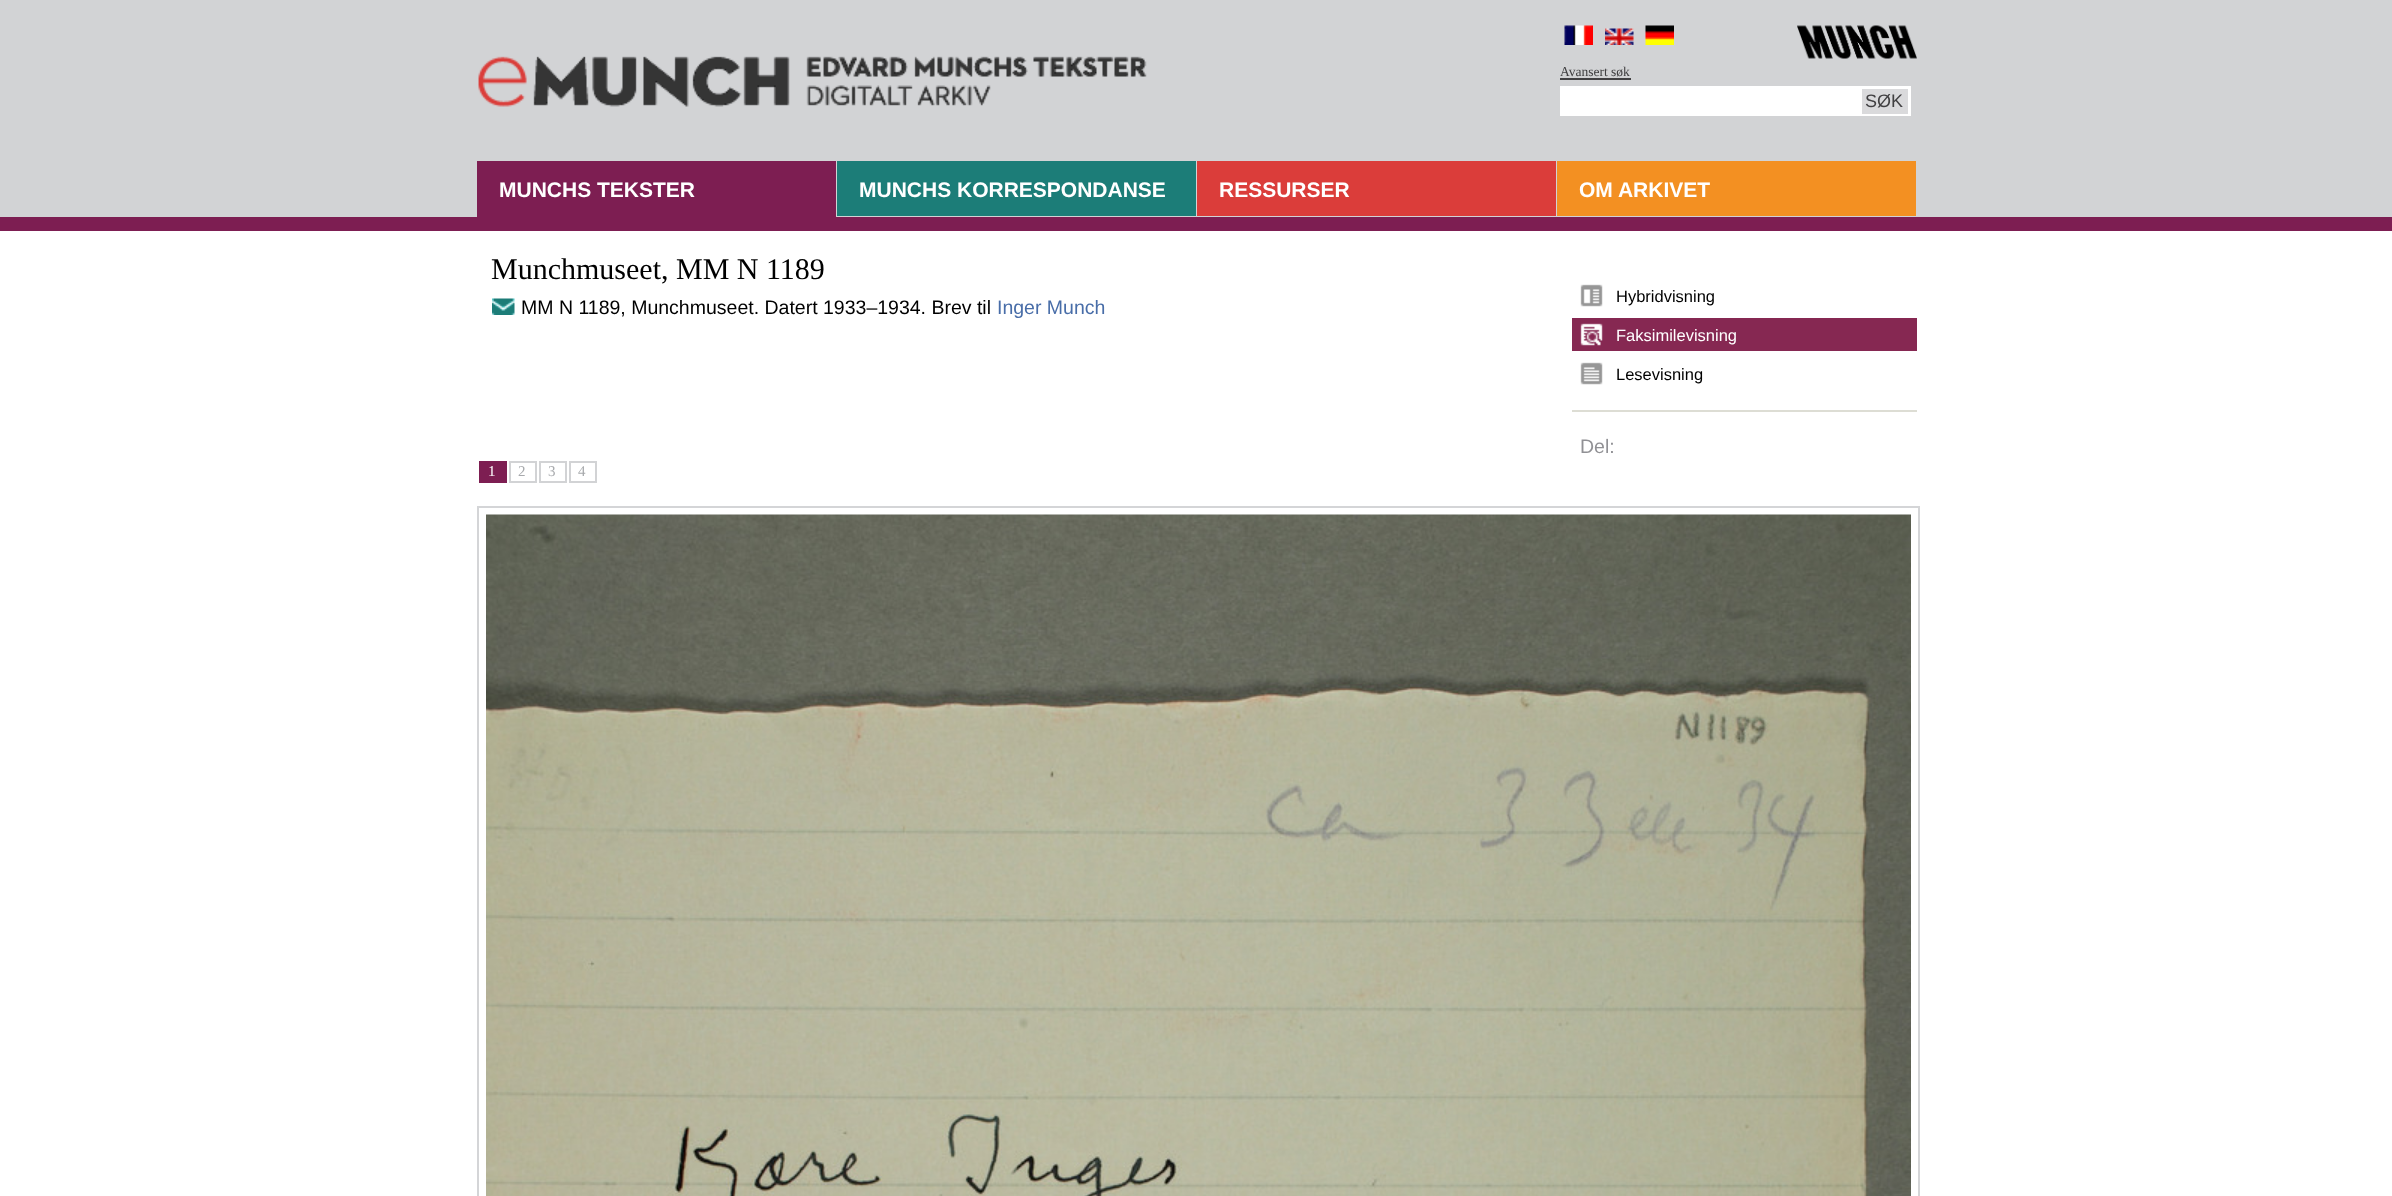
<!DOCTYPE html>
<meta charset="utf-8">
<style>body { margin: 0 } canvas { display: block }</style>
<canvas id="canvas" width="2392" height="1196"></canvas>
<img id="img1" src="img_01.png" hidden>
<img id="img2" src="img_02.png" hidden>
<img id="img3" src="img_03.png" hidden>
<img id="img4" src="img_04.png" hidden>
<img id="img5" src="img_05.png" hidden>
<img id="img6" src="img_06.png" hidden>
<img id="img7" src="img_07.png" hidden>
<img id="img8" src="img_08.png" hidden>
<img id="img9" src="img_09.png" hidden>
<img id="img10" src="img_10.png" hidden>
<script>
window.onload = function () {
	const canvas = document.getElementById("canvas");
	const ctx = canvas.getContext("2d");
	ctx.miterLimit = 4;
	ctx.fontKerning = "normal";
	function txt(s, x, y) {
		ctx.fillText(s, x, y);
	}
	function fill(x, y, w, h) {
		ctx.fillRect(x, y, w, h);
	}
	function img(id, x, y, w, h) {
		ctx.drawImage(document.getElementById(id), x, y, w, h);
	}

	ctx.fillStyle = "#FFFFFF";
	fill(0, 0, 2392, 1196);
	ctx.fillStyle = "#D2D3D5";
	fill(0, 0, 2392, 217);
	img("img1", 478, 56, 669, 51);
	img("img2", 1564, 25, 29, 20);
	img("img3", 1605, 28, 29, 17);
	img("img4", 1645, 25, 29, 20);
	img("img5", 1797, 25, 120, 34);
	ctx.fillStyle = "#414042";
	fill(1560, 78, 71, 2);
	ctx.fillStyle = "#FFFFFF";
	fill(1560, 86, 351, 30);
	ctx.fillStyle = "#DADADC";
	fill(1862, 89, 46, 25);
	ctx.fillStyle = "#7D1E52";
	fill(0, 217, 2392, 14);
	fill(477, 161, 359, 56);
	ctx.fillStyle = "#1C7D78";
	fill(837, 161, 359, 55);
	ctx.fillStyle = "#DB3D3A";
	fill(1197, 161, 359, 55);
	ctx.fillStyle = "#F39022";
	fill(1557, 161, 359, 55);
	img("img6", 492, 298, 23, 17);
	img("img7", 1580, 284, 23, 23);
	img("img8", 1572, 318, 345, 33);
	img("img9", 1580, 362, 23, 23);
	ctx.fillStyle = "#DDDDD4";
	fill(1572, 410, 345, 2);
	ctx.fillStyle = "#7D1E52";
	fill(479, 461, 28, 22);
	ctx.strokeStyle = "#D2D3D5";
	ctx.lineWidth = 2;
	ctx.strokeRect(510, 462, 26, 20);
	ctx.strokeRect(540, 462, 26, 20);
	ctx.strokeRect(570, 462, 26, 20);
	ctx.strokeStyle = "#D4D5D7";
	ctx.strokeRect(478, 507, 1441, 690);
	img("img10", 486, 514, 1425, 682);
	ctx.font = "13.5px Liberation Serif";
	ctx.fillStyle = "#414042";
	txt("Avansert søk", 1560, 76);
	ctx.font = "18px Liberation Sans";
	txt("SØK", 1865, 107);
	ctx.font = "bold 21px Liberation Sans";
	ctx.fillStyle = "#FFFFFF";
	txt("MUNCHS TEKSTER", 499, 197);
	txt("MUNCHS KORRESPONDANSE", 859, 197);
	txt("RESSURSER", 1219, 197);
	txt("OM ARKIVET", 1579, 197);
	ctx.font = "30px Liberation Serif";
	ctx.fillStyle = "#000000";
	txt("Munchmuseet, MM N 1189", 491, 279);
	ctx.font = "19.5px Liberation Sans";
	txt("MM N 1189, Munchmuseet. Datert 1933–1934. Brev til", 521, 314);
	ctx.fillStyle = "#486DA8";
	txt("Inger Munch", 997, 314);
	ctx.font = "16.5px Liberation Sans";
	ctx.fillStyle = "#000000";
	txt("Hybridvisning", 1616, 302);
	ctx.fillStyle = "#FFFFFF";
	txt("Faksimilevisning", 1616, 341);
	ctx.fillStyle = "#000000";
	txt("Lesevisning", 1616, 380);
	ctx.font = "19.5px Liberation Sans";
	ctx.fillStyle = "#919195";
	txt("Del:", 1580, 453);
	ctx.font = "15px Liberation Serif";
	ctx.fillStyle = "#FFFFFF";
	txt("1", 488, 476);
	ctx.fillStyle = "#A7A9AC";
	txt("2", 518, 476);
	txt("3", 548, 476);
	txt("4", 578, 476);
};
</script>
